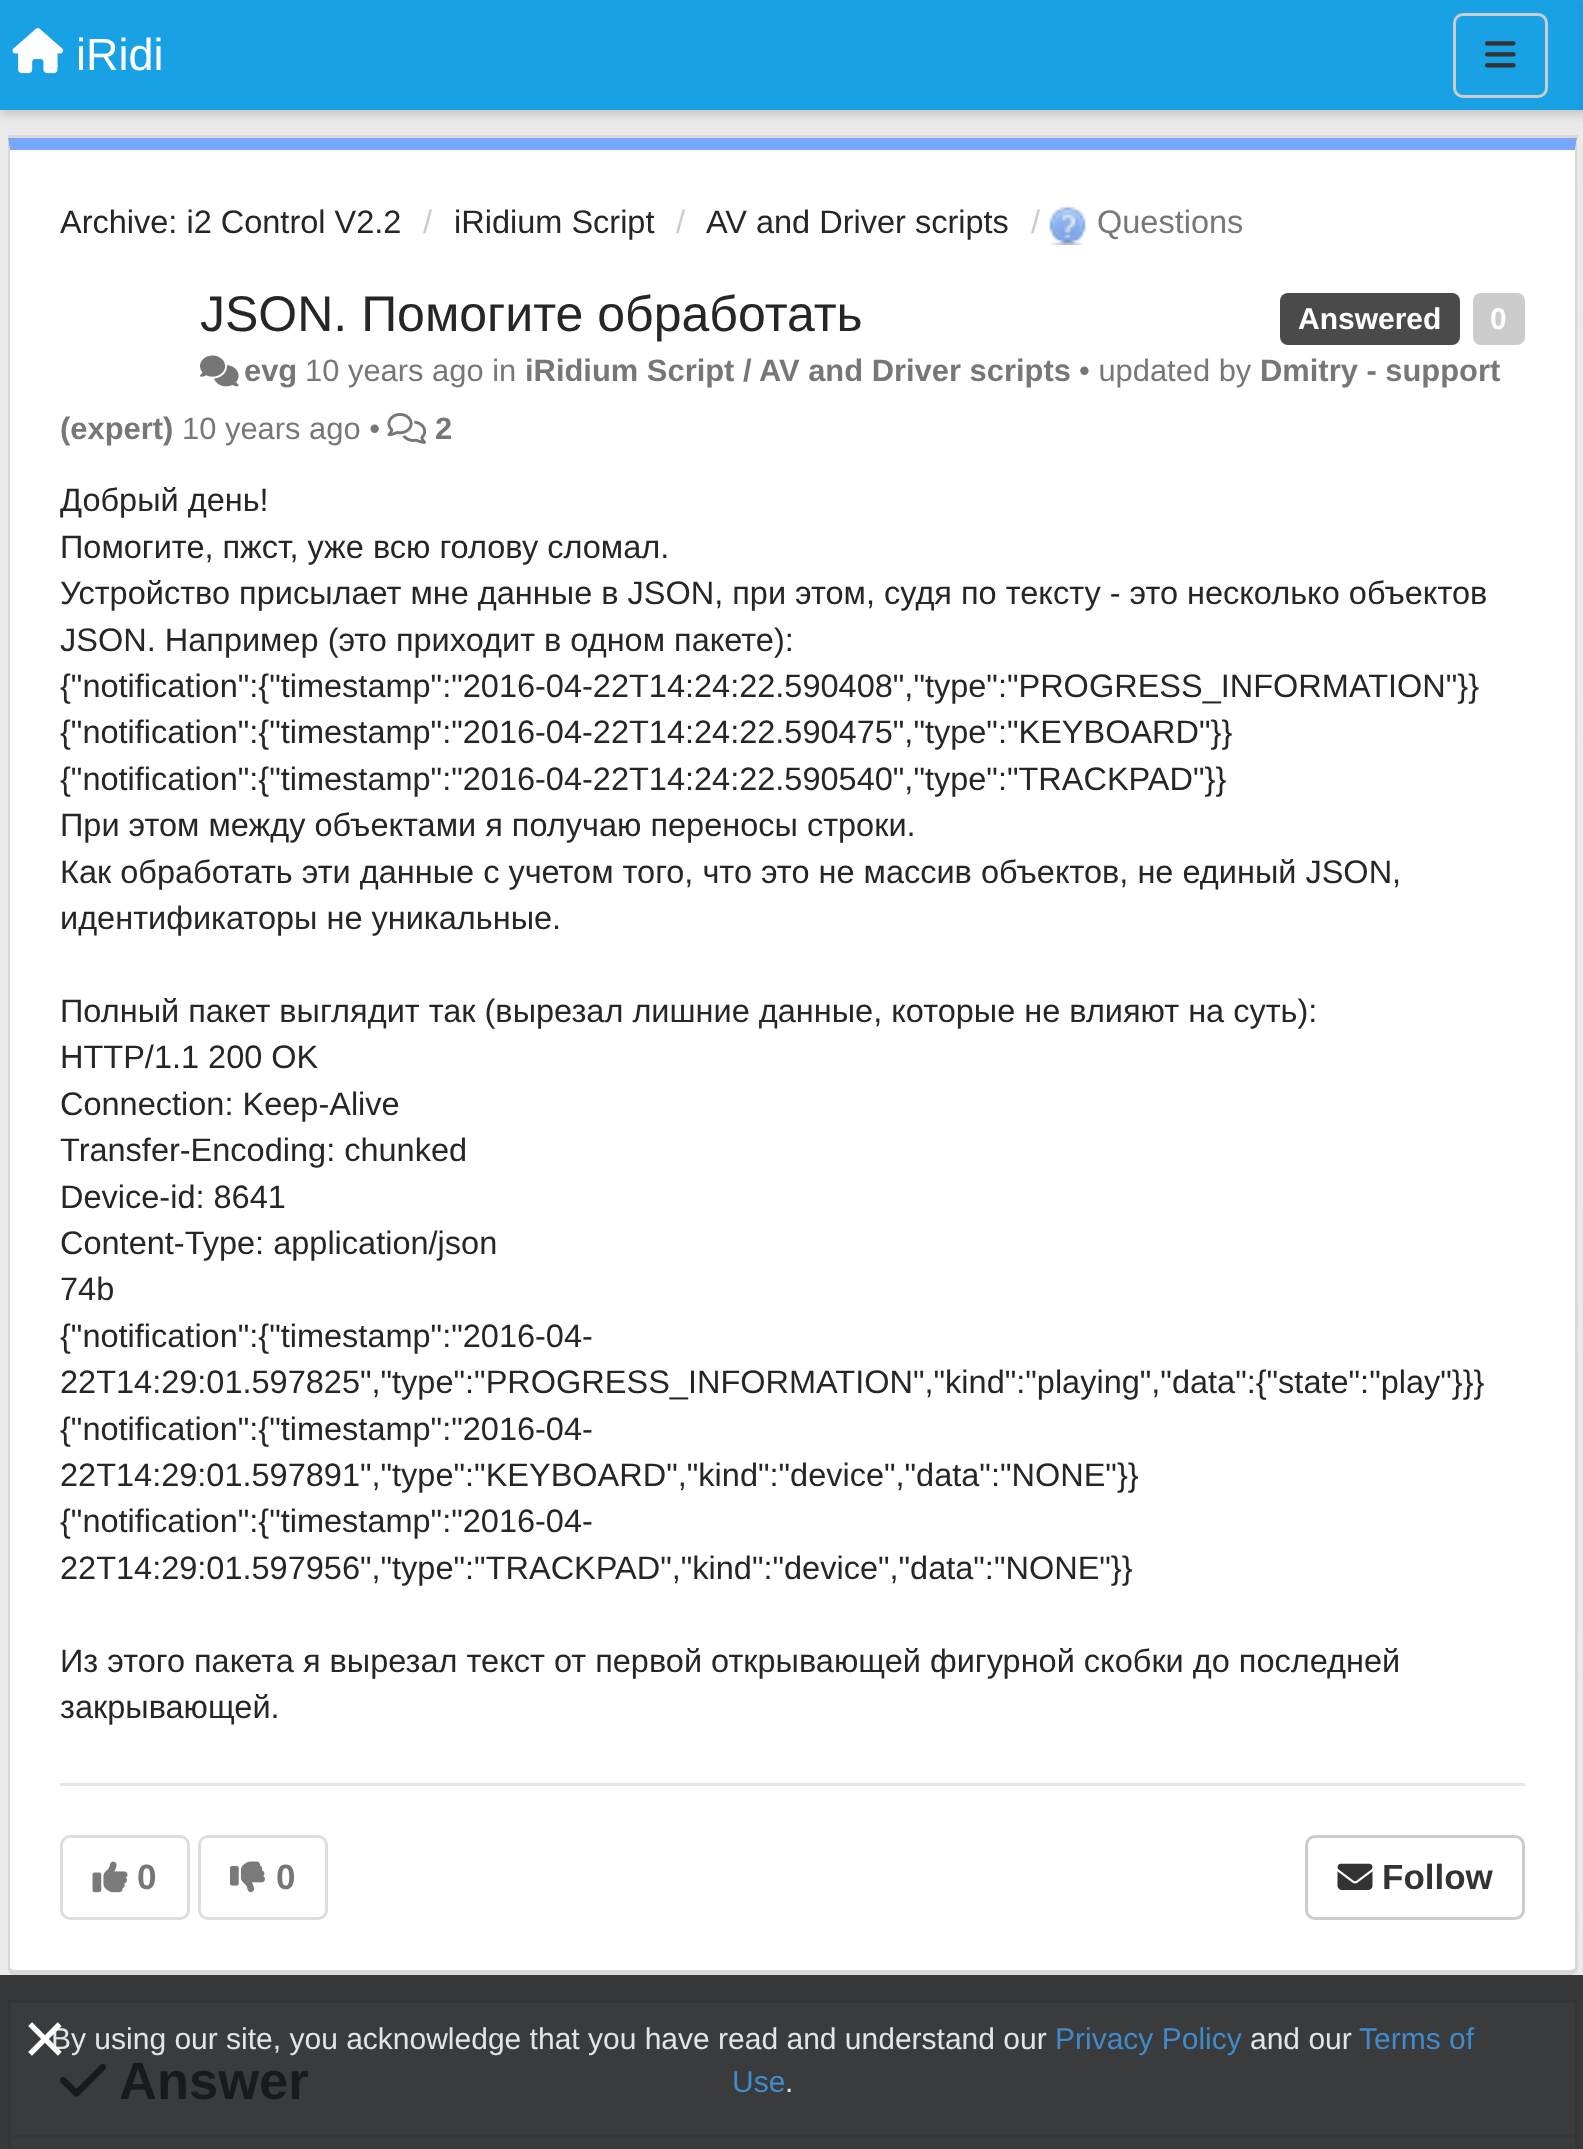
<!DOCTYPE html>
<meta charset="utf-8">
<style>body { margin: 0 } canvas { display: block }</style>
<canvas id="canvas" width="1583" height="2149"></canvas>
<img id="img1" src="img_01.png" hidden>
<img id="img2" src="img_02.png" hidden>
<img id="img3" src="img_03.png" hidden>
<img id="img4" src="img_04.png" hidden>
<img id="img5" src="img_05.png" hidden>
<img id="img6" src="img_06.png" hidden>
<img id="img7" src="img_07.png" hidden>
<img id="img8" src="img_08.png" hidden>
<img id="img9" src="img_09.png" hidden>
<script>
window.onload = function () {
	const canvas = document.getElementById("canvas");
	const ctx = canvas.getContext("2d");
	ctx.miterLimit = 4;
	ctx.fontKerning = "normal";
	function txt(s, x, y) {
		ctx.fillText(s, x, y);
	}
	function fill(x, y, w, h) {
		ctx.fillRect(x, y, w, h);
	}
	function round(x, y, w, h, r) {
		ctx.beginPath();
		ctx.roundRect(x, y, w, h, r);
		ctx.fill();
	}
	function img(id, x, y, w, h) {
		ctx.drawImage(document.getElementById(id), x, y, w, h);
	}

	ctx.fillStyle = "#EAEAEA";
	fill(0, 0, 1583, 2149);
	ctx.fillStyle = "rgba(0, 0, 0, 0.15)";
	ctx.filter = "blur(5px)";
	ctx.beginPath();
	ctx.rect(0, 5, 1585, 110);
	ctx.fill();
	ctx.filter = "none";
	ctx.fillStyle = "#19A1E5";
	fill(0, 0, 1583, 110);
	img("img1", 12, 28, 52, 46);
	ctx.beginPath();
	ctx.roundRect(1454.5, 14.5, 92, 82, 8.5);
	ctx.strokeStyle = "#CCCCCC";
	ctx.lineWidth = 3;
	ctx.stroke();
	img("img2", 1485, 41, 31, 27);
	ctx.fillStyle = "rgba(0, 0, 0, 0.15)";
	ctx.filter = "blur(5px)";
	ctx.beginPath();
	ctx.rect(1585, 5, 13, 110);
	ctx.fill();
	ctx.filter = "none";
	ctx.fillStyle = "#37383A";
	fill(0, 1975, 1583, 174);
	ctx.fillStyle = "#D8D8D8";
	fill(8, 135, 1570, 3);
	ctx.fillStyle = "#FFFFFF";
	ctx.beginPath();
	ctx.moveTo(10, 150);
	ctx.lineTo(1575, 150);
	ctx.lineTo(1575, 1968);
	ctx.bezierCurveTo(1575, 1969, 1573, 1970, 1570, 1970);
	ctx.lineTo(15, 1970);
	ctx.bezierCurveTo(12, 1970, 10, 1969, 10, 1968);
	ctx.closePath();
	ctx.fill();
	ctx.fillStyle = "#76A7FA";
	ctx.beginPath();
	ctx.moveTo(8, 138);
	ctx.lineTo(10, 150);
	ctx.lineTo(1575, 150);
	ctx.lineTo(1577, 138);
	ctx.closePath();
	ctx.fill();
	ctx.fillStyle = "#D8D8D8";
	ctx.beginPath();
	ctx.moveTo(1578, 1970);
	ctx.lineTo(1576, 1972);
	ctx.lineTo(1574, 1969);
	ctx.lineTo(1575, 1968);
	ctx.lineTo(1575, 150);
	ctx.lineTo(1577, 138);
	ctx.closePath();
	ctx.fill();
	ctx.beginPath();
	ctx.moveTo(15, 1975);
	ctx.lineTo(1570, 1975);
	ctx.bezierCurveTo(1572, 1975, 1575, 1974, 1576, 1972);
	ctx.lineTo(1574, 1969);
	ctx.lineTo(1570, 1970);
	ctx.lineTo(15, 1970);
	ctx.lineTo(11, 1969);
	ctx.lineTo(9, 1972);
	ctx.bezierCurveTo(10, 1974, 12, 1975, 15, 1975);
	ctx.closePath();
	ctx.fill();
	ctx.beginPath();
	ctx.moveTo(10, 150);
	ctx.lineTo(8, 140);
	ctx.lineTo(8, 1968);
	ctx.lineTo(9, 1972);
	ctx.lineTo(11, 1969);
	ctx.lineTo(10, 1968);
	ctx.closePath();
	ctx.fill();
	img("img3", 1049, 206, 37, 39);
	ctx.fillStyle = "#4A4A4A";
	round(1280, 293, 180, 52, 8);
	ctx.fillStyle = "#CCCCCC";
	round(1473, 293, 52, 52, 8);
	img("img4", 200, 355, 39, 32);
	img("img5", 387, 413, 40, 31);
	ctx.fillStyle = "#E5E5E5";
	fill(60, 1783, 1465, 3);
	ctx.beginPath();
	ctx.roundRect(61.5, 1836.5, 127, 82, 8.5);
	ctx.strokeStyle = "#DEDEDE";
	ctx.stroke();
	img("img6", 92, 1861, 36, 32);
	ctx.beginPath();
	ctx.roundRect(199.5, 1836.5, 127, 82, 8.5);
	ctx.stroke();
	img("img7", 230, 1861, 35, 32);
	ctx.beginPath();
	ctx.roundRect(1306.5, 1836.5, 217, 82, 8.5);
	ctx.strokeStyle = "#CCCCCC";
	ctx.stroke();
	img("img8", 1337, 1863, 36, 27);
	ctx.fillStyle = "#3A3B3D";
	ctx.beginPath();
	ctx.moveTo(10, 2002);
	ctx.lineTo(1575, 2002);
	ctx.lineTo(1575, 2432);
	ctx.bezierCurveTo(1575, 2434, 1573, 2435, 1570, 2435);
	ctx.lineTo(15, 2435);
	ctx.bezierCurveTo(12, 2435, 10, 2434, 10, 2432);
	ctx.closePath();
	ctx.fill();
	ctx.strokeStyle = "#343537";
	ctx.strokeRect(9.5, 2001.5, 1567, 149);
	img("img9", 60, 2063, 46, 34);
	ctx.fillStyle = "#35373B";
	fill(10, 2135, 1565, 3);
	ctx.font = "45px Liberation Sans";
	ctx.fillStyle = "#FFFFFF";
	txt("iRidi", 76, 70);
	ctx.font = "32.5px Liberation Sans";
	ctx.fillStyle = "#262626";
	txt("Archive: i2 Control V2.2", 60, 233);
	ctx.fillStyle = "#CCCCCC";
	txt("/", 423, 233);
	ctx.fillStyle = "#262626";
	txt("iRidium Script", 454, 233);
	ctx.fillStyle = "#CCCCCC";
	txt("/", 676, 233);
	ctx.fillStyle = "#262626";
	txt("AV and Driver scripts", 706, 233);
	ctx.fillStyle = "#CCCCCC";
	txt("/", 1031, 233);
	ctx.fillStyle = "#777777";
	txt("Questions", 1097, 233);
	ctx.font = "50px Liberation Sans";
	ctx.fillStyle = "#262626";
	txt("JSON. Помогите обработать", 200, 331);
	ctx.font = "bold 30px Liberation Sans";
	ctx.fillStyle = "#FFFFFF";
	txt("Answered", 1298, 329);
	txt("0", 1490, 329);
	ctx.font = "bold 30.9px Liberation Sans";
	ctx.fillStyle = "#777777";
	txt("evg", 244, 381);
	ctx.font = "30.9px Liberation Sans";
	txt("10 years ago in", 305, 381);
	ctx.font = "bold 30.9px Liberation Sans";
	txt("iRidium Script / AV and Driver scripts", 525, 381);
	ctx.font = "30.9px Liberation Sans";
	txt("• updated by", 1079, 381);
	ctx.font = "bold 30.9px Liberation Sans";
	txt("Dmitry - support", 1260, 381);
	txt("(expert)", 60, 439);
	ctx.font = "30.9px Liberation Sans";
	txt("10 years ago •", 182, 439);
	ctx.font = "bold 30.9px Liberation Sans";
	txt("2", 435, 439);
	ctx.font = "32.5px Liberation Sans";
	ctx.fillStyle = "#262626";
	txt("Добрый день!", 60, 511);
	txt("Помогите, пжст, уже всю голову сломал.", 60, 558);
	txt("Устройство присылает мне данные в JSON, при этом, судя по тексту - это несколько объектов", 60, 604);
	txt("JSON. Например (это приходит в одном пакете):", 60, 651);
	txt("{\"notification\":{\"timestamp\":\"2016-04-22T14:24:22.590408\",\"type\":\"PROGRESS_INFORMATION\"}}", 60, 697);
	txt("{\"notification\":{\"timestamp\":\"2016-04-22T14:24:22.590475\",\"type\":\"KEYBOARD\"}}", 60, 743);
	txt("{\"notification\":{\"timestamp\":\"2016-04-22T14:24:22.590540\",\"type\":\"TRACKPAD\"}}", 60, 790);
	txt("При этом между объектами я получаю переносы строки.", 60, 836);
	txt("Как обработать эти данные с учетом того, что это не массив объектов, не единый JSON,", 60, 883);
	txt("идентификаторы не уникальные.", 60, 929);
	txt("Полный пакет выглядит так (вырезал лишние данные, которые не влияют на суть):", 60, 1022);
	txt("HTTP/1.1 200 OK", 60, 1068);
	txt("Connection: Keep-Alive", 60, 1115);
	txt("Transfer-Encoding: chunked", 60, 1161);
	txt("Device-id: 8641", 60, 1208);
	txt("Content-Type: application/json", 60, 1254);
	txt("74b", 60, 1300);
	txt("{\"notification\":{\"timestamp\":\"2016-04-", 60, 1347);
	txt("22T14:29:01.597825\",\"type\":\"PROGRESS_INFORMATION\",\"kind\":\"playing\",\"data\":{\"state\":\"play\"}}}", 60, 1393);
	txt("{\"notification\":{\"timestamp\":\"2016-04-", 60, 1440);
	txt("22T14:29:01.597891\",\"type\":\"KEYBOARD\",\"kind\":\"device\",\"data\":\"NONE\"}}", 60, 1486);
	txt("{\"notification\":{\"timestamp\":\"2016-04-", 60, 1532);
	txt("22T14:29:01.597956\",\"type\":\"TRACKPAD\",\"kind\":\"device\",\"data\":\"NONE\"}}", 60, 1579);
	txt("Из этого пакета я вырезал текст от первой открывающей фигурной скобки до последней", 60, 1672);
	txt("закрывающей.", 60, 1718);
	ctx.font = "bold 35px Liberation Sans";
	ctx.fillStyle = "#777777";
	txt("0", 137, 1889);
	txt("0", 276, 1889);
	ctx.fillStyle = "#333333";
	txt("Follow", 1382, 1889);
	ctx.font = "bold 52.5px Liberation Sans";
	ctx.fillStyle = "#191A1D";
	txt("Answer", 119, 2099);
	ctx.font = "30px Liberation Sans";
	ctx.fillStyle = "#E1E5EA";
	txt("By using our site, you acknowledge that you have read and understand our", 51, 2049);
	ctx.font = "75px Liberation Sans";
	ctx.fillStyle = "#FFFFFF";
	txt("×", 23, 2064);
	ctx.font = "30px Liberation Sans";
	ctx.fillStyle = "#428BCA";
	txt("Privacy Policy", 1055, 2049);
	ctx.fillStyle = "#E1E5EA";
	txt("and our", 1250, 2049);
	ctx.fillStyle = "#428BCA";
	txt("Terms of", 1359, 2049);
	txt("Use", 732, 2092);
	ctx.fillStyle = "#E1E5EA";
	txt(".", 785, 2092);
};
</script>
